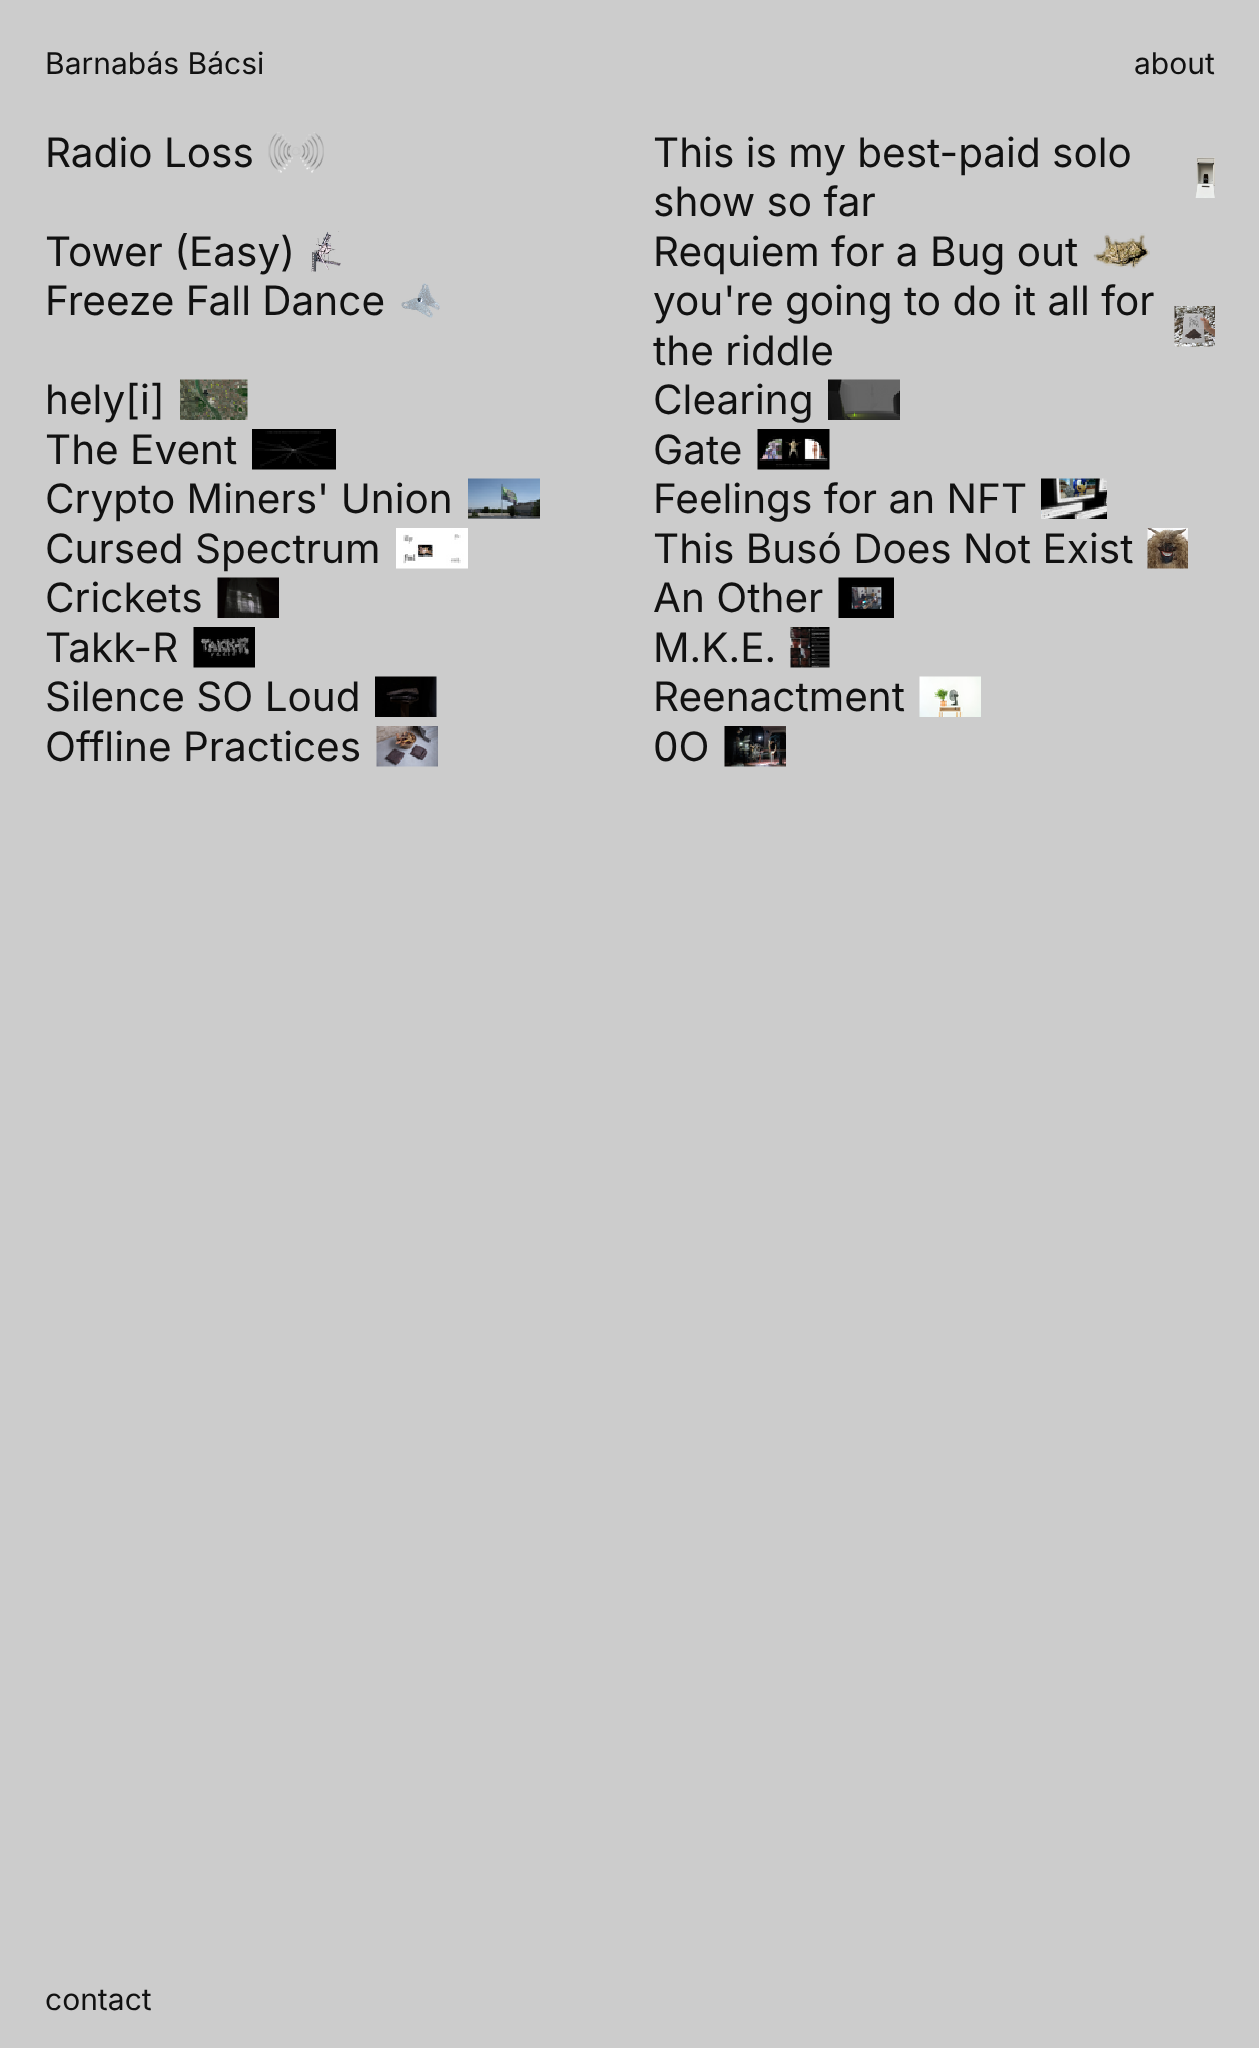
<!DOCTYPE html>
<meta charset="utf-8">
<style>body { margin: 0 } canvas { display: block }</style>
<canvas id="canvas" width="1259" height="2048"></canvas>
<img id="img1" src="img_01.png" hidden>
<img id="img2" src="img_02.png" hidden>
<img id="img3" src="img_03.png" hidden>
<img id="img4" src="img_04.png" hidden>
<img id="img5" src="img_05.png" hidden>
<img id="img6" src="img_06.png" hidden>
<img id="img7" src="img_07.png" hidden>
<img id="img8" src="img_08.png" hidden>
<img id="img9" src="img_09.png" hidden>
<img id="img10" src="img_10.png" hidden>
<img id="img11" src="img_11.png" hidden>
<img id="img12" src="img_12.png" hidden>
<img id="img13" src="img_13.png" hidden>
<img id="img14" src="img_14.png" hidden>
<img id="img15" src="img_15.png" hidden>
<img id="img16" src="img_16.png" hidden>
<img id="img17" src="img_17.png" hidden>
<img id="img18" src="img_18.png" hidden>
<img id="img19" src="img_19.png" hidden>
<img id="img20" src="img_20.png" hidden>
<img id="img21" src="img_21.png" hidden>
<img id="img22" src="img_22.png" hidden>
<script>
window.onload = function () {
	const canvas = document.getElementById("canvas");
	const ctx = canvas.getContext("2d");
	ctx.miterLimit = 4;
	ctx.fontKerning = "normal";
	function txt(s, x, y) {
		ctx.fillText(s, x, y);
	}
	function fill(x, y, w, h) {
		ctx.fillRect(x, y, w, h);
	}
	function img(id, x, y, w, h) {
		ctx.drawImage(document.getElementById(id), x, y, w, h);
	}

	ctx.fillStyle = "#CCCCCC";
	fill(0, 0, 1259, 2048);
	img("img1", 268, 132, 56, 41);
	img("img2", 1195, 157, 20, 41);
	img("img3", 311, 231, 30, 41);
	img("img4", 1093, 233, 57, 36);
	img("img5", 401, 283, 39, 35);
	img("img6", 1174, 306, 41, 41);
	img("img7", 180, 379, 68, 41);
	img("img8", 828, 379, 72, 41);
	img("img9", 252, 429, 84, 41);
	img("img10", 757, 429, 73, 41);
	img("img11", 468, 478, 72, 41);
	img("img12", 1041, 478, 66, 41);
	img("img13", 396, 528, 72, 41);
	img("img14", 1147, 528, 41, 41);
	img("img15", 217, 577, 62, 41);
	img("img16", 838, 577, 56, 41);
	img("img17", 193, 627, 62, 41);
	img("img18", 790, 627, 40, 41);
	img("img19", 375, 676, 62, 41);
	img("img20", 919, 676, 62, 41);
	img("img21", 376, 726, 62, 41);
	img("img22", 724, 726, 62, 41);
	ctx.font = "30px Inter";
	ctx.fillStyle = "#111111";
	txt("Barnabás Bácsi", 45, 74);
	txt("about", 1134, 74);
	ctx.font = "40.5px Inter";
	txt("Radio Loss", 45, 167);
	txt("This is my best-paid solo", 653, 167);
	txt("show so far", 653, 216);
	txt("Tower (Easy)", 45, 266);
	txt("Requiem for a Bug out", 653, 266);
	txt("Freeze Fall Dance", 45, 315);
	txt("you're going to do it all for", 653, 315);
	txt("the riddle", 653, 365);
	txt("hely[i]", 45, 414);
	txt("Clearing", 653, 414);
	txt("The Event", 45, 464);
	txt("Gate", 653, 464);
	txt("Crypto Miners' Union", 45, 513);
	txt("Feelings for an NFT", 653, 513);
	txt("Cursed Spectrum", 45, 563);
	txt("This Busó Does Not Exist", 653, 563);
	txt("Crickets", 45, 612);
	txt("An Other", 653, 612);
	txt("Takk-R", 45, 662);
	txt("M.K.E.", 653, 662);
	txt("Silence SO Loud", 45, 711);
	txt("Reenactment", 653, 711);
	txt("Offline Practices", 45, 761);
	txt("0O", 653, 761);
	ctx.font = "30px Inter";
	txt("contact", 45, 2010);
};
</script>
